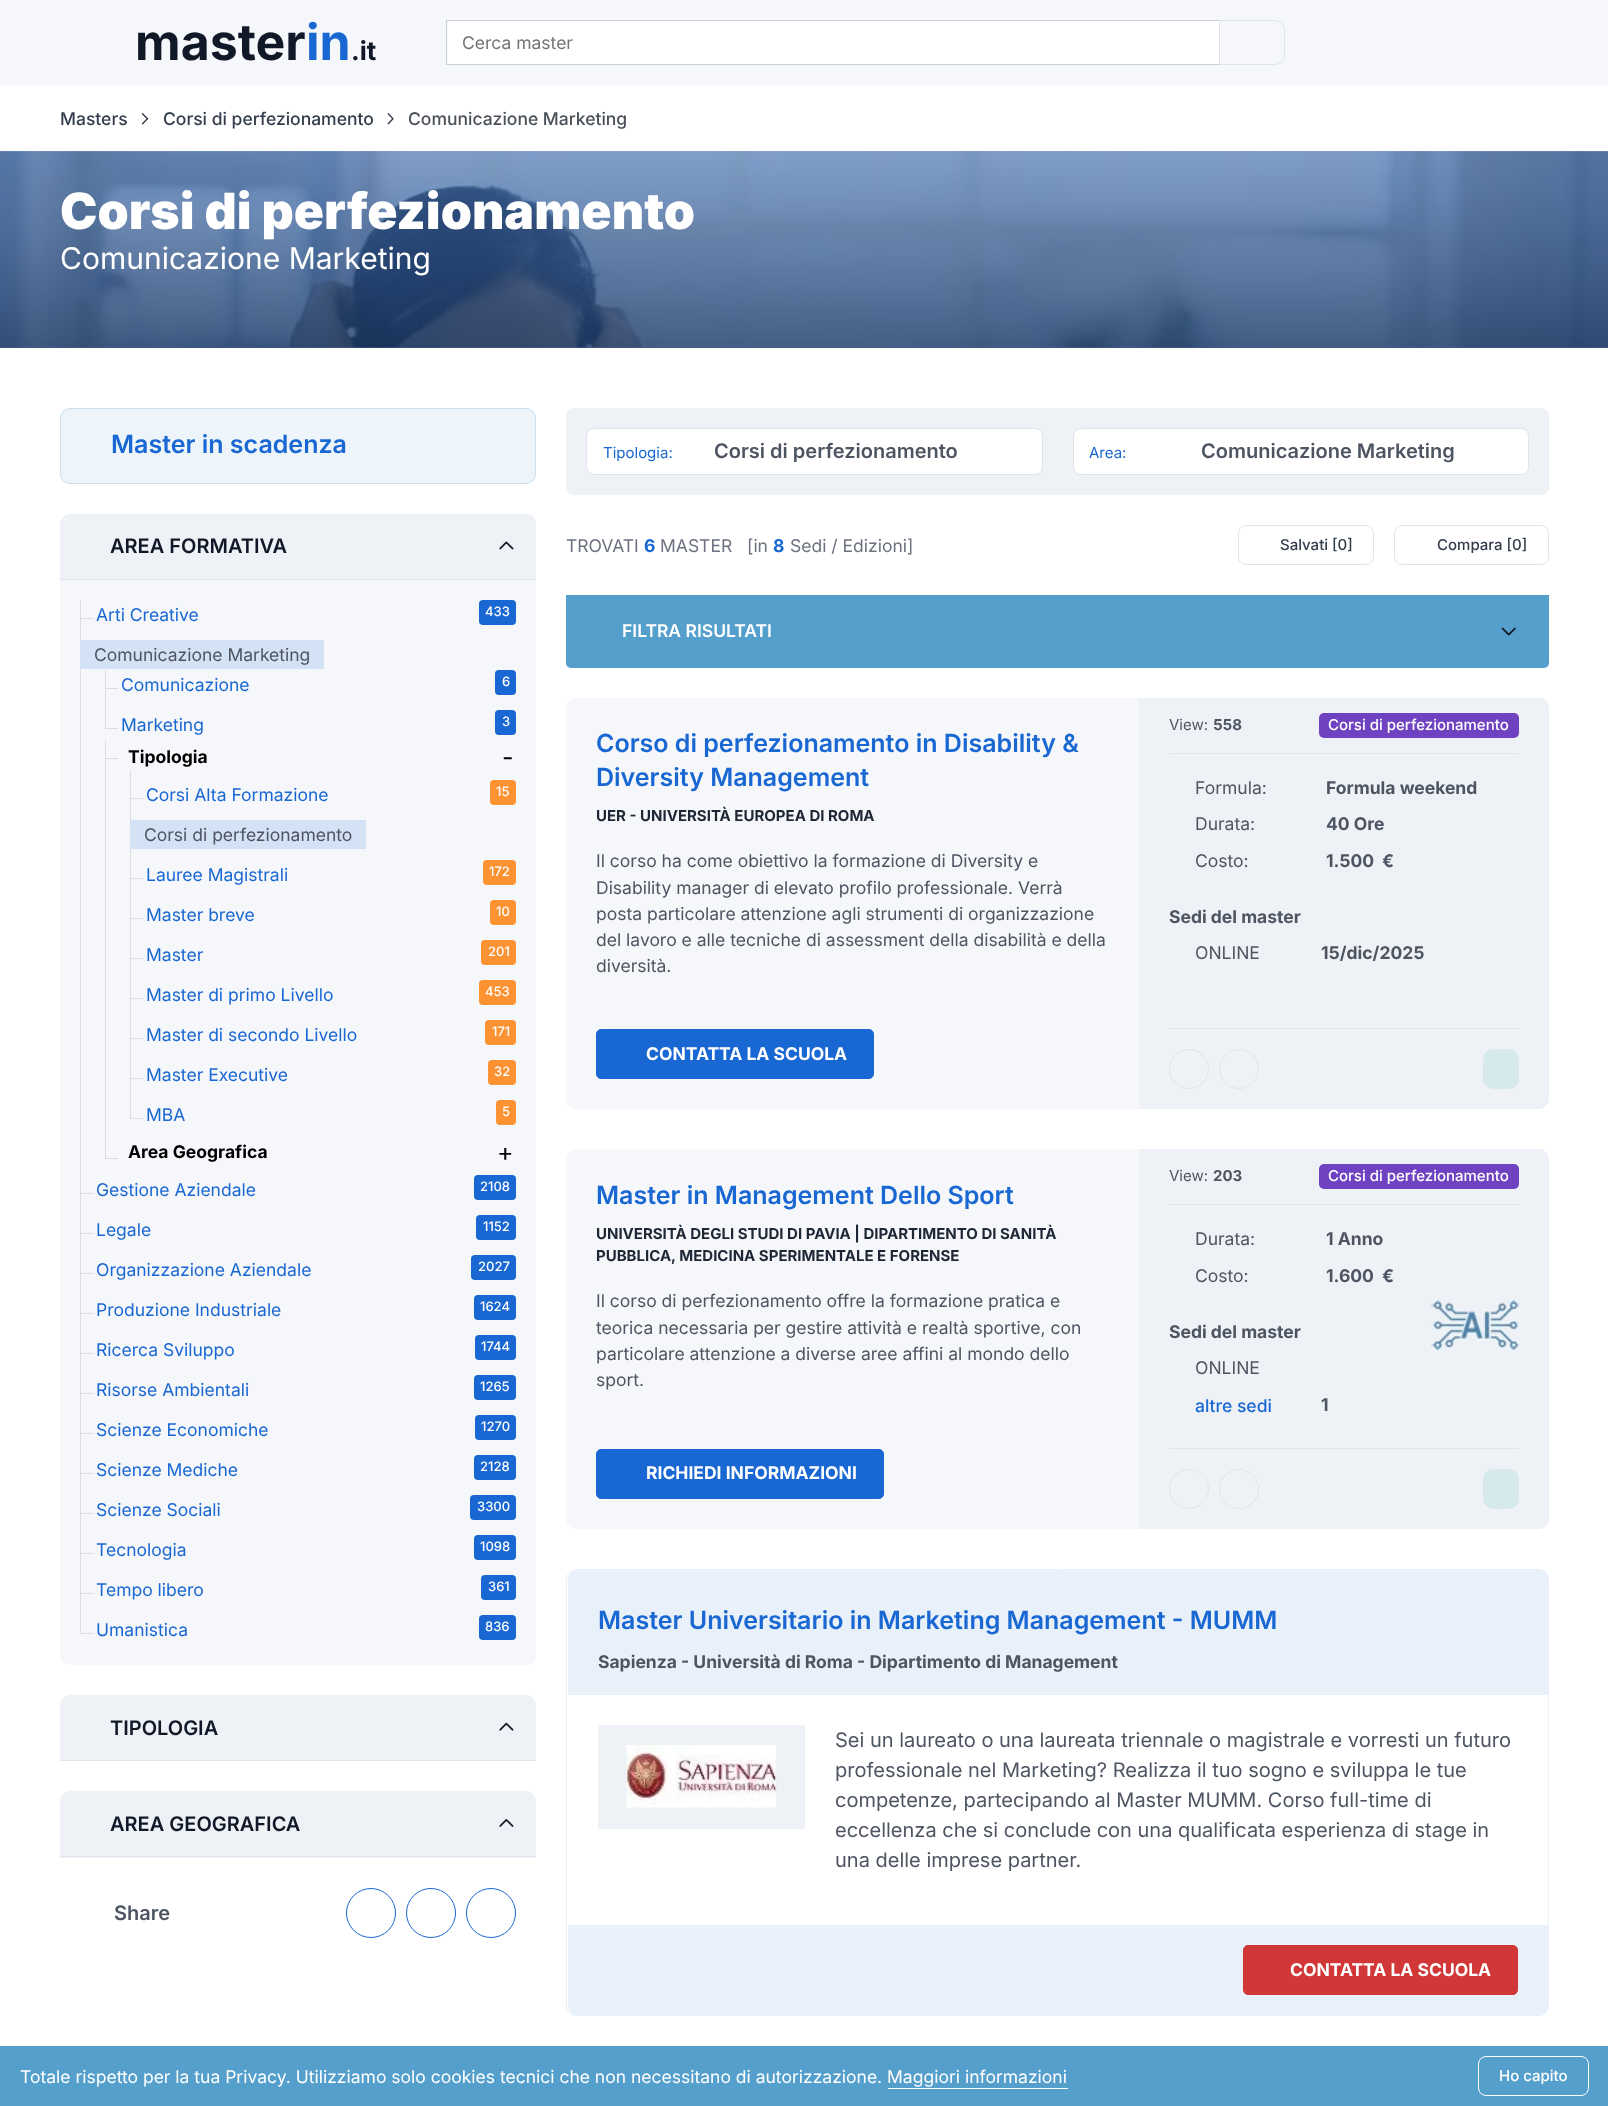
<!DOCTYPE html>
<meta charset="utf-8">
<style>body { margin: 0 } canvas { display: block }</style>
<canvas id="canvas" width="1608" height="2106"></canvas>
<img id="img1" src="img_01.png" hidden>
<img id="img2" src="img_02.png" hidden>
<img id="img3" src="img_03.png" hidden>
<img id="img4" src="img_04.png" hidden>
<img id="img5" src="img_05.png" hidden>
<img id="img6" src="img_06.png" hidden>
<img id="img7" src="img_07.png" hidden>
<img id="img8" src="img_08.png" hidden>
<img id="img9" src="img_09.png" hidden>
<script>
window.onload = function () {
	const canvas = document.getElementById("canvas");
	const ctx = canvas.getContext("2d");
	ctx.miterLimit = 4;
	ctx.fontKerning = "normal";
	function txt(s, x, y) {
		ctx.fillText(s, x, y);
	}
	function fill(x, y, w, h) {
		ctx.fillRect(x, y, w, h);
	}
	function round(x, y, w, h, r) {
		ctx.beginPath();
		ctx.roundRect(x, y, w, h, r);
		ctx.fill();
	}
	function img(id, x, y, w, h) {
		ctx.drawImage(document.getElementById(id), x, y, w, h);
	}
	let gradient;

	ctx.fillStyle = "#FFFFFF";
	fill(0, 0, 1608, 2106);
	ctx.fillStyle = "#F5F7FA";
	fill(0, 0, 1608, 85);
	ctx.fillStyle = "#FFFFFF";
	fill(448, 21, 771, 43);
	ctx.strokeStyle = "#CAD0D9";
	ctx.strokeRect(446.5, 20.5, 773, 44);
	ctx.beginPath();
	ctx.roundRect(1219.5, 20.5, 65, 44, [0, 9.5, 9.5, 0]);
	ctx.strokeStyle = "#E0E5EB";
	ctx.stroke();
	img("img1", 141, 113, 8, 12);
	img("img2", 387, 113, 7, 12);
	img("img3", 0, 151, 1608, 197);
	gradient = ctx.createLinearGradient(804, 151, 804, 348);
	gradient.addColorStop(0, "rgba(61, 111, 179, 0.6)");
	gradient.addColorStop(1, "rgba(27, 59, 106, 0.8)");
	ctx.fillStyle = gradient;
	fill(0, 151, 1608, 197);
	ctx.fillStyle = "#EEF5FA";
	round(60, 408, 476, 76, 10);
	ctx.beginPath();
	ctx.roundRect(60.5, 408.5, 475, 75, 9.5);
	ctx.strokeStyle = "rgba(85, 159, 204, 0.25)";
	ctx.stroke();
	ctx.fillStyle = "#F5F7FA";
	round(60, 514, 476, 1151, 10);
	ctx.fillStyle = "#EEF1F6";
	ctx.beginPath();
	ctx.roundRect(60, 514, 476, 66, [10, 10, 0, 0]);
	ctx.fill();
	ctx.fillStyle = "#E0E5EB";
	fill(60, 579, 476, 1);
	img("img4", 499, 541, 15, 9);
	ctx.fillStyle = "#DDDDDF";
	fill(80, 600, 1, 1033);
	fill(80, 618, 13, 1);
	ctx.fillStyle = "#1967D2";
	round(479, 600, 37, 25, 4);
	ctx.fillStyle = "#D4E2F6";
	fill(80, 640, 244, 29);
	ctx.fillStyle = "#DDDDDF";
	fill(105, 670, 1, 58);
	fill(105, 688, 13, 1);
	ctx.fillStyle = "#1967D2";
	round(495, 670, 21, 25, 4);
	ctx.fillStyle = "#DDDDDF";
	fill(105, 728, 13, 1);
	ctx.fillStyle = "#1967D2";
	round(495, 710, 21, 25, 4);
	ctx.fillStyle = "#DDDDDF";
	fill(105, 740, 1, 425);
	fill(105, 758, 13, 1);
	fill(130, 770, 1, 348);
	fill(130, 798, 13, 1);
	ctx.fillStyle = "#FC9231";
	round(490, 780, 26, 25, 4);
	ctx.fillStyle = "#D4E2F6";
	fill(130, 820, 236, 29);
	ctx.fillStyle = "#DDDDDF";
	fill(130, 878, 13, 1);
	ctx.fillStyle = "#FC9231";
	round(483, 860, 33, 25, 4);
	ctx.fillStyle = "#DDDDDF";
	fill(130, 918, 13, 1);
	ctx.fillStyle = "#FC9231";
	round(490, 900, 26, 25, 4);
	ctx.fillStyle = "#DDDDDF";
	fill(130, 958, 13, 1);
	ctx.fillStyle = "#FC9231";
	round(481, 940, 35, 25, 4);
	ctx.fillStyle = "#DDDDDF";
	fill(130, 998, 13, 1);
	ctx.fillStyle = "#FC9231";
	round(479, 980, 37, 25, 4);
	ctx.fillStyle = "#DDDDDF";
	fill(130, 1038, 13, 1);
	ctx.fillStyle = "#FC9231";
	round(485, 1020, 31, 25, 4);
	ctx.fillStyle = "#DDDDDF";
	fill(130, 1078, 13, 1);
	ctx.fillStyle = "#FC9231";
	round(488, 1060, 28, 25, 4);
	ctx.fillStyle = "#DDDDDF";
	fill(130, 1118, 13, 1);
	ctx.fillStyle = "#FC9231";
	round(496, 1100, 20, 25, 4);
	ctx.fillStyle = "#F5F7FC";
	fill(105, 1159, 1, 6);
	ctx.fillStyle = "#DDDDDF";
	fill(105, 1158, 13, 1);
	fill(80, 1193, 13, 1);
	ctx.fillStyle = "#1967D2";
	round(474, 1175, 42, 25, 4);
	ctx.fillStyle = "#DDDDDF";
	fill(80, 1233, 13, 1);
	ctx.fillStyle = "#1967D2";
	round(476, 1215, 40, 25, 4);
	ctx.fillStyle = "#DDDDDF";
	fill(80, 1273, 13, 1);
	ctx.fillStyle = "#1967D2";
	round(471, 1255, 45, 25, 4);
	ctx.fillStyle = "#DDDDDF";
	fill(80, 1313, 13, 1);
	ctx.fillStyle = "#1967D2";
	round(474, 1295, 42, 25, 4);
	ctx.fillStyle = "#DDDDDF";
	fill(80, 1353, 13, 1);
	ctx.fillStyle = "#1967D2";
	round(475, 1335, 41, 25, 4);
	ctx.fillStyle = "#DDDDDF";
	fill(80, 1393, 13, 1);
	ctx.fillStyle = "#1967D2";
	round(474, 1375, 42, 25, 4);
	ctx.fillStyle = "#DDDDDF";
	fill(80, 1433, 13, 1);
	ctx.fillStyle = "#1967D2";
	round(475, 1415, 41, 25, 4);
	ctx.fillStyle = "#DDDDDF";
	fill(80, 1473, 13, 1);
	ctx.fillStyle = "#1967D2";
	round(474, 1455, 42, 25, 4);
	ctx.fillStyle = "#DDDDDF";
	fill(80, 1513, 13, 1);
	ctx.fillStyle = "#1967D2";
	round(470, 1495, 46, 25, 4);
	ctx.fillStyle = "#DDDDDF";
	fill(80, 1553, 13, 1);
	ctx.fillStyle = "#1967D2";
	round(474, 1535, 42, 25, 4);
	ctx.fillStyle = "#DDDDDF";
	fill(80, 1593, 13, 1);
	ctx.fillStyle = "#1967D2";
	round(481, 1575, 35, 25, 4);
	ctx.fillStyle = "#DDDDDF";
	fill(80, 1633, 13, 1);
	ctx.fillStyle = "#1967D2";
	round(479, 1615, 37, 25, 4);
	ctx.fillStyle = "#EEF1F6";
	ctx.beginPath();
	ctx.roundRect(60, 1695, 476, 66, [10, 10, 0, 0]);
	ctx.fill();
	ctx.fillStyle = "#E0E5EB";
	fill(60, 1760, 476, 1);
	img("img5", 499, 1722, 15, 9);
	ctx.fillStyle = "#EEF1F6";
	ctx.beginPath();
	ctx.roundRect(60, 1791, 476, 67, [10, 10, 0, 0]);
	ctx.fill();
	ctx.fillStyle = "#E0E5EB";
	fill(60, 1856, 476, 1);
	img("img6", 499, 1819, 15, 8);
	ctx.beginPath();
	ctx.arc(371, 1913, 24.5, 0, Math.PI * 2);
	ctx.strokeStyle = "#1967D2";
	ctx.stroke();
	ctx.beginPath();
	ctx.arc(431, 1913, 24.5, 0, Math.PI * 2);
	ctx.stroke();
	ctx.beginPath();
	ctx.arc(491, 1913, 24.5, 0, Math.PI * 2);
	ctx.stroke();
	ctx.fillStyle = "#EEF1F6";
	round(566, 408, 983, 87, 8);
	ctx.fillStyle = "#FFFFFF";
	ctx.beginPath();
	ctx.roundRect(586.5, 428.5, 456, 46, 7.5);
	ctx.fill();
	ctx.strokeStyle = "#E0E5EB";
	ctx.stroke();
	ctx.beginPath();
	ctx.roundRect(1073.5, 428.5, 455, 46, 7.5);
	ctx.fill();
	ctx.stroke();
	ctx.beginPath();
	ctx.roundRect(1238.5, 525.5, 135, 39, 7.5);
	ctx.stroke();
	ctx.beginPath();
	ctx.roundRect(1394.5, 525.5, 154, 39, 7.5);
	ctx.stroke();
	ctx.fillStyle = "#559FCC";
	ctx.beginPath();
	ctx.roundRect(566, 595, 983, 73, [0, 0, 5, 5]);
	ctx.fill();
	img("img7", 1501, 627, 15, 9);
	ctx.fillStyle = "#F5F7FA";
	round(566, 698, 983, 411, 10);
	ctx.fillStyle = "#1967D2";
	ctx.beginPath();
	ctx.roundRect(596.5, 1029.5, 277, 49, 4.5);
	ctx.fill();
	ctx.strokeStyle = "#1967D2";
	ctx.stroke();
	ctx.fillStyle = "#EEF1F6";
	ctx.beginPath();
	ctx.roundRect(1139, 698, 410, 411, [0, 10, 10, 0]);
	ctx.fill();
	ctx.fillStyle = "#6F42C1";
	round(1319, 713, 200, 25, 5);
	ctx.fillStyle = "#E0E5EB";
	fill(1169, 753, 350, 1);
	fill(1169, 1028, 350, 1);
	ctx.beginPath();
	ctx.arc(1189, 1069, 19.5, 0, Math.PI * 2);
	ctx.strokeStyle = "#E0E5EB";
	ctx.stroke();
	ctx.beginPath();
	ctx.arc(1239, 1069, 19.5, 0, Math.PI * 2);
	ctx.stroke();
	ctx.fillStyle = "#D6EAEB";
	round(1483, 1049, 36, 40, 10);
	ctx.fillStyle = "#F5F7FA";
	round(566, 1149, 983, 380, 10);
	ctx.fillStyle = "#1967D2";
	ctx.beginPath();
	ctx.roundRect(596.5, 1449.5, 287, 49, 4.5);
	ctx.fill();
	ctx.strokeStyle = "#1967D2";
	ctx.stroke();
	ctx.fillStyle = "#EEF1F6";
	ctx.beginPath();
	ctx.roundRect(1139, 1149, 410, 380, [0, 10, 10, 0]);
	ctx.fill();
	ctx.fillStyle = "#6F42C1";
	round(1319, 1164, 200, 25, 5);
	img("img8", 1431, 1300, 88, 50);
	ctx.fillStyle = "#E0E5EB";
	fill(1169, 1204, 350, 1);
	fill(1169, 1448, 350, 1);
	ctx.beginPath();
	ctx.arc(1189, 1489, 19.5, 0, Math.PI * 2);
	ctx.strokeStyle = "#E0E5EB";
	ctx.stroke();
	ctx.beginPath();
	ctx.arc(1239, 1489, 19.5, 0, Math.PI * 2);
	ctx.stroke();
	ctx.fillStyle = "#D6EAEB";
	round(1483, 1469, 36, 40, 10);
	ctx.beginPath();
	ctx.roundRect(566.5, 1569.5, 982, 446, 9.5);
	ctx.strokeStyle = "#E8F0FB";
	ctx.stroke();
	ctx.fillStyle = "rgba(25, 103, 210, 0.1)";
	ctx.beginPath();
	ctx.roundRect(568, 1570, 980, 125, [9, 9, 0, 0]);
	ctx.fill();
	ctx.fillStyle = "#EEF1F6";
	fill(598, 1725, 207, 104);
	img("img9", 626, 1745, 151, 63);
	ctx.fillStyle = "rgba(25, 103, 210, 0.1)";
	ctx.beginPath();
	ctx.roundRect(568, 1925, 980, 90, [0, 0, 9, 9]);
	ctx.fill();
	ctx.fillStyle = "#D23737";
	ctx.beginPath();
	ctx.roundRect(1243.5, 1945.5, 274, 49, 4.5);
	ctx.fill();
	ctx.strokeStyle = "#D23737";
	ctx.stroke();
	ctx.fillStyle = "#559FCC";
	fill(0, 2046, 1608, 60);
	ctx.fillStyle = "#FFFFFF";
	fill(888, 2088, 180, 1);
	ctx.beginPath();
	ctx.roundRect(1478.5, 2056.5, 110, 39, 7.5);
	ctx.strokeStyle = "#FFFFFF";
	ctx.stroke();
	ctx.font = "bold 50px Inter";
	ctx.fillStyle = "#111827";
	txt("master", 135, 60);
	ctx.fillStyle = "#1967D2";
	txt("in", 306, 60);
	ctx.font = "bold 26px Inter";
	ctx.fillStyle = "#111827";
	txt(".it", 351, 60);
	ctx.font = "17.5px Inter";
	ctx.fillStyle = "#757575";
	txt("Cerca master", 462, 49);
	ctx.font = "500 17.5px Inter";
	ctx.fillStyle = "#333D4C";
	txt("Masters", 60, 125);
	txt("Corsi di perfezionamento", 163, 125);
	ctx.fillStyle = "#495057";
	txt("Comunicazione Marketing", 408, 125);
	ctx.font = "900 50px Inter";
	ctx.fillStyle = "#FFFFFF";
	txt("Corsi di perfezionamento", 60, 229);
	ctx.font = "30px Inter";
	txt("Comunicazione Marketing", 60, 269);
	ctx.font = "600 25px Inter";
	ctx.fillStyle = "#1967D2";
	txt("Master in scadenza", 111, 453);
	ctx.font = "600 20px Inter";
	ctx.fillStyle = "#111827";
	txt("AREA FORMATIVA", 110, 553);
	ctx.font = "17.5px Inter";
	ctx.fillStyle = "#1967D2";
	txt("Arti Creative", 96, 621);
	ctx.font = "500 13px Inter";
	ctx.fillStyle = "#FFFFFF";
	txt("433", 485, 616);
	ctx.font = "17.5px Inter";
	ctx.fillStyle = "#4E5562";
	txt("Comunicazione Marketing", 94, 661);
	ctx.fillStyle = "#1967D2";
	txt("Comunicazione", 121, 691);
	ctx.font = "500 13px Inter";
	ctx.fillStyle = "#FFFFFF";
	txt("6", 502, 686);
	ctx.font = "17.5px Inter";
	ctx.fillStyle = "#1967D2";
	txt("Marketing", 121, 731);
	ctx.font = "500 13px Inter";
	ctx.fillStyle = "#FFFFFF";
	txt("3", 502, 726);
	ctx.font = "bold 17.5px Inter";
	ctx.fillStyle = "#000000";
	txt("Tipologia", 128, 763);
	ctx.font = "25px Inter";
	txt("-", 502, 766);
	ctx.font = "17.5px Inter";
	ctx.fillStyle = "#1967D2";
	txt("Corsi Alta Formazione", 146, 801);
	ctx.font = "500 13px Inter";
	ctx.fillStyle = "#FFFFFF";
	txt("15", 496, 796);
	ctx.font = "17.5px Inter";
	ctx.fillStyle = "#4E5562";
	txt("Corsi di perfezionamento", 144, 841);
	ctx.fillStyle = "#1967D2";
	txt("Lauree Magistrali", 146, 881);
	ctx.font = "500 13px Inter";
	ctx.fillStyle = "#FFFFFF";
	txt("172", 489, 876);
	ctx.font = "17.5px Inter";
	ctx.fillStyle = "#1967D2";
	txt("Master breve", 146, 921);
	ctx.font = "500 13px Inter";
	ctx.fillStyle = "#FFFFFF";
	txt("10", 496, 916);
	ctx.font = "17.5px Inter";
	ctx.fillStyle = "#1967D2";
	txt("Master", 146, 961);
	ctx.font = "500 13px Inter";
	ctx.fillStyle = "#FFFFFF";
	txt("201", 488, 956);
	ctx.font = "17.5px Inter";
	ctx.fillStyle = "#1967D2";
	txt("Master di primo Livello", 146, 1001);
	ctx.font = "500 13px Inter";
	ctx.fillStyle = "#FFFFFF";
	txt("453", 485, 996);
	ctx.font = "17.5px Inter";
	ctx.fillStyle = "#1967D2";
	txt("Master di secondo Livello", 146, 1041);
	ctx.font = "500 13px Inter";
	ctx.fillStyle = "#FFFFFF";
	txt("171", 492, 1036);
	ctx.font = "17.5px Inter";
	ctx.fillStyle = "#1967D2";
	txt("Master Executive", 146, 1081);
	ctx.font = "500 13px Inter";
	ctx.fillStyle = "#FFFFFF";
	txt("32", 494, 1076);
	ctx.font = "17.5px Inter";
	ctx.fillStyle = "#1967D2";
	txt("MBA", 146, 1121);
	ctx.font = "500 13px Inter";
	ctx.fillStyle = "#FFFFFF";
	txt("5", 502, 1116);
	ctx.font = "bold 17.5px Inter";
	ctx.fillStyle = "#000000";
	txt("Area Geografica", 128, 1158);
	ctx.font = "25px Inter";
	txt("+", 497, 1161);
	ctx.font = "17.5px Inter";
	ctx.fillStyle = "#1967D2";
	txt("Gestione Aziendale", 96, 1196);
	ctx.font = "500 13px Inter";
	ctx.fillStyle = "#FFFFFF";
	txt("2108", 480, 1191);
	ctx.font = "17.5px Inter";
	ctx.fillStyle = "#1967D2";
	txt("Legale", 96, 1236);
	ctx.font = "500 13px Inter";
	ctx.fillStyle = "#FFFFFF";
	txt("1152", 483, 1231);
	ctx.font = "17.5px Inter";
	ctx.fillStyle = "#1967D2";
	txt("Organizzazione Aziendale", 96, 1276);
	ctx.font = "500 13px Inter";
	ctx.fillStyle = "#FFFFFF";
	txt("2027", 478, 1271);
	ctx.font = "17.5px Inter";
	ctx.fillStyle = "#1967D2";
	txt("Produzione Industriale", 96, 1316);
	ctx.font = "500 13px Inter";
	ctx.fillStyle = "#FFFFFF";
	txt("1624", 480, 1311);
	ctx.font = "17.5px Inter";
	ctx.fillStyle = "#1967D2";
	txt("Ricerca Sviluppo", 96, 1356);
	ctx.font = "500 13px Inter";
	ctx.fillStyle = "#FFFFFF";
	txt("1744", 481, 1351);
	ctx.font = "17.5px Inter";
	ctx.fillStyle = "#1967D2";
	txt("Risorse Ambientali", 96, 1396);
	ctx.font = "500 13px Inter";
	ctx.fillStyle = "#FFFFFF";
	txt("1265", 480, 1391);
	ctx.font = "17.5px Inter";
	ctx.fillStyle = "#1967D2";
	txt("Scienze Economiche", 96, 1436);
	ctx.font = "500 13px Inter";
	ctx.fillStyle = "#FFFFFF";
	txt("1270", 481, 1431);
	ctx.font = "17.5px Inter";
	ctx.fillStyle = "#1967D2";
	txt("Scienze Mediche", 96, 1476);
	ctx.font = "500 13px Inter";
	ctx.fillStyle = "#FFFFFF";
	txt("2128", 480, 1471);
	ctx.font = "17.5px Inter";
	ctx.fillStyle = "#1967D2";
	txt("Scienze Sociali", 96, 1516);
	ctx.font = "500 13px Inter";
	ctx.fillStyle = "#FFFFFF";
	txt("3300", 477, 1511);
	ctx.font = "17.5px Inter";
	ctx.fillStyle = "#1967D2";
	txt("Tecnologia", 96, 1556);
	ctx.font = "500 13px Inter";
	ctx.fillStyle = "#FFFFFF";
	txt("1098", 480, 1551);
	ctx.font = "17.5px Inter";
	ctx.fillStyle = "#1967D2";
	txt("Tempo libero", 96, 1596);
	ctx.font = "500 13px Inter";
	ctx.fillStyle = "#FFFFFF";
	txt("361", 488, 1591);
	ctx.font = "17.5px Inter";
	ctx.fillStyle = "#1967D2";
	txt("Umanistica", 96, 1636);
	ctx.font = "500 13px Inter";
	ctx.fillStyle = "#FFFFFF";
	txt("836", 485, 1631);
	ctx.font = "600 20px Inter";
	ctx.fillStyle = "#111827";
	txt("TIPOLOGIA", 110, 1735);
	txt("AREA GEOGRAFICA", 110, 1831);
	ctx.fillStyle = "#4E5562";
	txt("Share", 114, 1920);
	ctx.font = "15px Inter";
	ctx.fillStyle = "#1967D2";
	txt("Tipologia:", 603, 458);
	ctx.font = "600 20px Inter";
	ctx.fillStyle = "#4E5562";
	txt("Corsi di perfezionamento", 714, 458);
	ctx.font = "15px Inter";
	ctx.fillStyle = "#1967D2";
	txt("Area:", 1089, 458);
	ctx.font = "600 20px Inter";
	ctx.fillStyle = "#4E5562";
	txt("Comunicazione Marketing", 1201, 458);
	ctx.font = "17.5px Inter";
	ctx.fillStyle = "#6C727F";
	txt("TROVATI", 566, 552);
	ctx.font = "bold 17.5px Inter";
	ctx.fillStyle = "#1967D2";
	txt("6", 644, 552);
	ctx.font = "17.5px Inter";
	ctx.fillStyle = "#6C727F";
	txt("MASTER", 660, 552);
	txt("[in", 747, 552);
	ctx.font = "bold 17.5px Inter";
	ctx.fillStyle = "#1967D2";
	txt("8", 773, 552);
	ctx.font = "17.5px Inter";
	ctx.fillStyle = "#6C727F";
	txt("Sedi / Edizioni]", 790, 552);
	ctx.font = "500 15px Inter";
	ctx.fillStyle = "#333D4C";
	txt("Salvati [0]", 1280, 550);
	txt("Compara [0]", 1437, 550);
	ctx.font = "600 17.5px Inter";
	ctx.fillStyle = "#FFFFFF";
	txt("FILTRA RISULTATI", 622, 637);
	ctx.font = "600 25px Inter";
	ctx.fillStyle = "#1967D2";
	txt("Corso di perfezionamento in Disability &", 596, 752);
	txt("Diversity Management", 596, 786);
	ctx.font = "bold 15px Inter";
	ctx.fillStyle = "#1D2735";
	txt("UER - UNIVERSITÀ EUROPEA DI ROMA", 596, 821);
	ctx.font = "17.5px Inter";
	ctx.fillStyle = "#4E5562";
	txt("Il corso ha come obiettivo la formazione di Diversity e", 596, 867);
	txt("Disability manager di elevato profilo professionale. Verrà", 596, 894);
	txt("posta particolare attenzione agli strumenti di organizzazione", 596, 920);
	txt("del lavoro e alle tecniche di assessment della disabilità e della", 596, 946);
	txt("diversità.", 596, 972);
	ctx.font = "bold 17.5px Inter";
	ctx.fillStyle = "#FFFFFF";
	txt("CONTATTA LA SCUOLA", 646, 1060);
	ctx.font = "15px Inter";
	ctx.fillStyle = "#4E5562";
	txt("View:", 1169, 730);
	ctx.font = "bold 15px Inter";
	txt("558", 1213, 730);
	ctx.font = "500 15px Inter";
	ctx.fillStyle = "#FFFFFF";
	txt("Corsi di perfezionamento", 1328, 730);
	ctx.font = "17.5px Inter";
	ctx.fillStyle = "#4E5562";
	txt("Formula:", 1195, 794);
	ctx.font = "bold 17.5px Inter";
	txt("Formula weekend", 1326, 794);
	ctx.font = "17.5px Inter";
	txt("Durata:", 1195, 830);
	ctx.font = "bold 17.5px Inter";
	txt("40 Ore", 1326, 830);
	ctx.font = "17.5px Inter";
	txt("Costo:", 1195, 867);
	ctx.font = "bold 17.5px Inter";
	txt("1.500", 1326, 867);
	txt("€", 1382, 867);
	txt("Sedi del master", 1169, 923);
	ctx.font = "17.5px Inter";
	txt("ONLINE", 1195, 959);
	ctx.font = "bold 17.5px Inter";
	txt("15/dic/2025", 1321, 959);
	ctx.font = "600 25px Inter";
	ctx.fillStyle = "#1967D2";
	txt("Master in Management Dello Sport", 596, 1204);
	ctx.font = "bold 15px Inter";
	ctx.fillStyle = "#1D2735";
	txt("UNIVERSITÀ DEGLI STUDI DI PAVIA | DIPARTIMENTO DI SANITÀ", 596, 1239);
	txt("PUBBLICA, MEDICINA SPERIMENTALE E FORENSE", 596, 1261);
	ctx.font = "17.5px Inter";
	ctx.fillStyle = "#4E5562";
	txt("Il corso di perfezionamento offre la formazione pratica e", 596, 1307);
	txt("teorica necessaria per gestire attività e realtà sportive, con", 596, 1334);
	txt("particolare attenzione a diverse aree affini al mondo dello", 596, 1360);
	txt("sport.", 596, 1386);
	ctx.font = "bold 17.5px Inter";
	ctx.fillStyle = "#FFFFFF";
	txt("RICHIEDI INFORMAZIONI", 646, 1479);
	ctx.font = "15px Inter";
	ctx.fillStyle = "#4E5562";
	txt("View:", 1169, 1181);
	ctx.font = "bold 15px Inter";
	txt("203", 1213, 1181);
	ctx.font = "500 15px Inter";
	ctx.fillStyle = "#FFFFFF";
	txt("Corsi di perfezionamento", 1328, 1181);
	ctx.font = "17.5px Inter";
	ctx.fillStyle = "#4E5562";
	txt("Durata:", 1195, 1245);
	ctx.font = "bold 17.5px Inter";
	txt("1 Anno", 1326, 1245);
	ctx.font = "17.5px Inter";
	txt("Costo:", 1195, 1282);
	ctx.font = "bold 17.5px Inter";
	txt("1.600", 1326, 1282);
	txt("€", 1382, 1282);
	txt("Sedi del master", 1169, 1338);
	ctx.font = "17.5px Inter";
	txt("ONLINE", 1195, 1374);
	ctx.font = "500 17.5px Inter";
	ctx.fillStyle = "#1967D2";
	txt("altre sedi", 1195, 1412);
	ctx.font = "bold 17.5px Inter";
	ctx.fillStyle = "#4E5562";
	txt("1", 1321, 1411);
	ctx.font = "600 25px Inter";
	ctx.fillStyle = "#1967D2";
	txt("Master Universitario in Marketing Management - MUMM", 598, 1629);
	ctx.font = "bold 17.5px Inter";
	ctx.fillStyle = "#4E5562";
	txt("Sapienza - Università di Roma - Dipartimento di Management", 598, 1668);
	ctx.font = "20px Inter";
	txt("Sei un laureato o una laureata triennale o magistrale e vorresti un futuro", 835, 1747);
	txt("professionale nel Marketing? Realizza il tuo sogno e sviluppa le tue", 835, 1777);
	txt("competenze, partecipando al Master MUMM. Corso full-time di", 835, 1807);
	txt("eccellenza che si conclude con una qualificata esperienza di stage in", 835, 1837);
	txt("una delle imprese partner.", 835, 1867);
	ctx.font = "bold 17.5px Inter";
	ctx.fillStyle = "#FFFFFF";
	txt("CONTATTA LA SCUOLA", 1290, 1976);
	ctx.font = "17.5px Inter";
	txt("Totale rispetto per la tua Privacy. Utilizziamo solo cookies tecnici che non necessitano di autorizzazione. Maggiori informazioni", 20, 2083);
	ctx.font = "500 15px Inter";
	txt("Ho capito", 1499, 2081);
};
</script>
